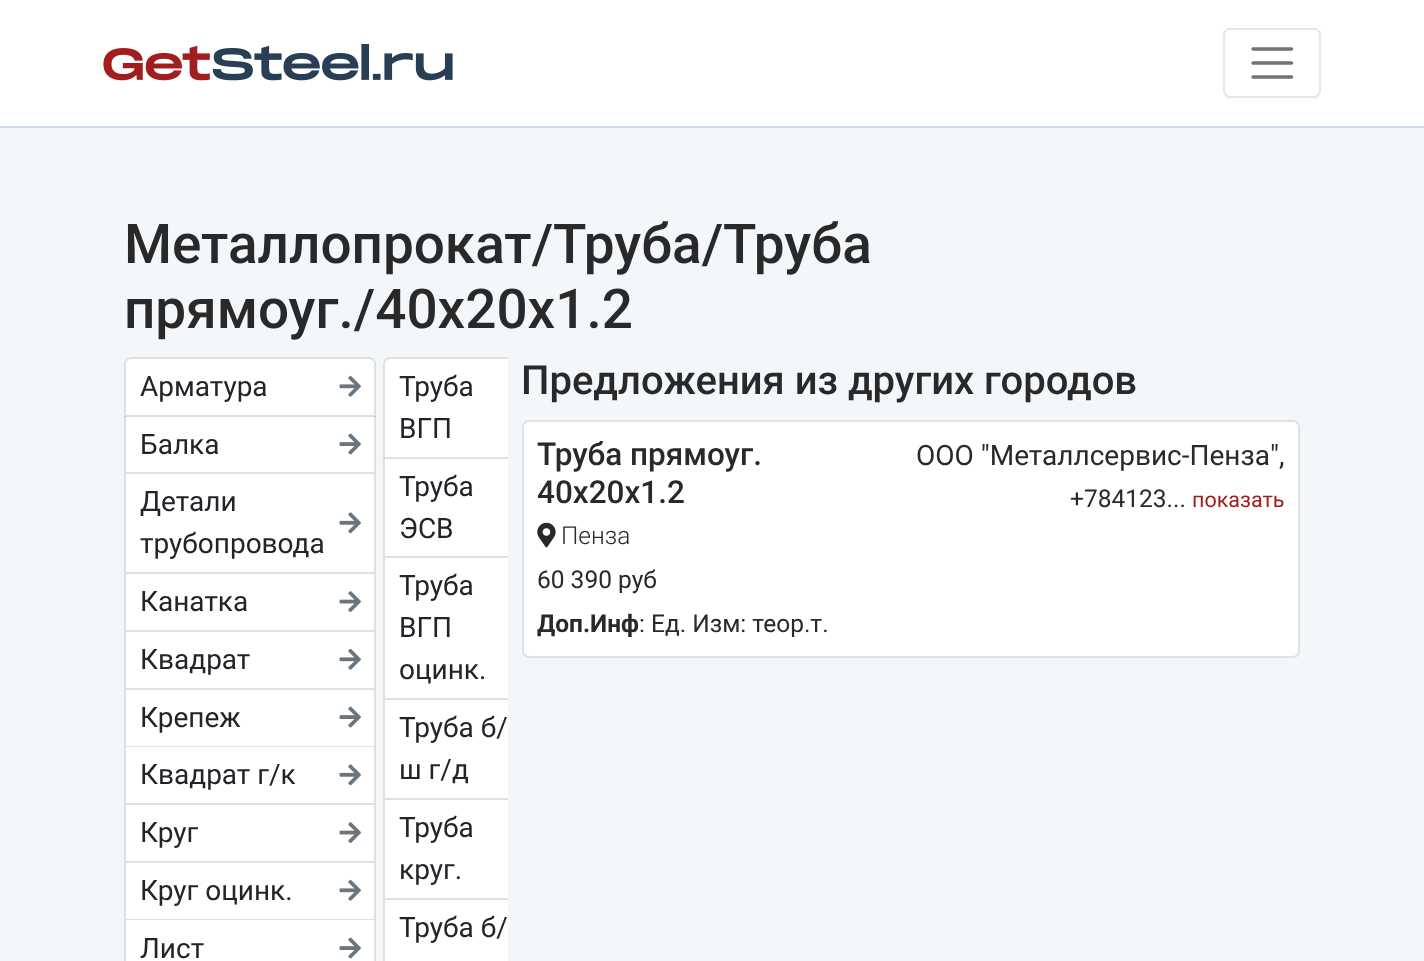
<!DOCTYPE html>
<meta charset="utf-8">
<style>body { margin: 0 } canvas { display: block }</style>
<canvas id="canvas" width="1424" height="961"></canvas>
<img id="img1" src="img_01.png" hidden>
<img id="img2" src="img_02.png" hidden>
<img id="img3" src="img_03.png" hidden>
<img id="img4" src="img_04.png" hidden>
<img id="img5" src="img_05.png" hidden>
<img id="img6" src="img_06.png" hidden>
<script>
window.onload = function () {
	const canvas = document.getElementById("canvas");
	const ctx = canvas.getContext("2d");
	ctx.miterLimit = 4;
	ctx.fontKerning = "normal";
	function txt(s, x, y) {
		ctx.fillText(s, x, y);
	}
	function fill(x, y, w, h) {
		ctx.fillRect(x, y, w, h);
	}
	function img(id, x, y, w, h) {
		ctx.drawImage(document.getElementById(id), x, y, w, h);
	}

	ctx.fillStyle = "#F4F7FA";
	fill(0, 0, 1424, 961);
	ctx.fillStyle = "#FFFFFF";
	fill(0, 0, 1424, 126);
	ctx.fillStyle = "#CED9EE";
	fill(0, 126, 1424, 2);
	img("img1", 103, 44, 350, 37);
	ctx.beginPath();
	ctx.roundRect(1224, 29, 96, 68, 6);
	ctx.strokeStyle = "#E6E6E6";
	ctx.lineWidth = 2;
	ctx.stroke();
	ctx.beginPath();
	ctx.moveTo(1253, 49);
	ctx.lineTo(1291.5, 49);
	ctx.moveTo(1253, 63);
	ctx.lineTo(1291.5, 63);
	ctx.moveTo(1253, 77);
	ctx.lineTo(1291.5, 77);
	ctx.strokeStyle = "#737373";
	ctx.lineWidth = 3.5;
	ctx.lineCap = "round";
	ctx.stroke();
	ctx.fillStyle = "#FFFFFF";
	ctx.beginPath();
	ctx.roundRect(124, 357, 252, 60, [7, 7, 0, 0]);
	ctx.fill();
	ctx.beginPath();
	ctx.roundRect(125, 358, 250, 58, [6, 6, 0, 0]);
	ctx.strokeStyle = "rgba(0, 0, 0, 0.12)";
	ctx.lineWidth = 2;
	ctx.stroke();
	img("img2", 339, 375, 22, 22);
	fill(124, 417, 252, 504);
	ctx.fillStyle = "rgba(0, 0, 0, 0.12)";
	ctx.beginPath();
	ctx.moveTo(376, 416);
	ctx.lineTo(376, 474);
	ctx.lineTo(374, 472);
	ctx.lineTo(374, 416);
	ctx.closePath();
	ctx.fill();
	ctx.beginPath();
	ctx.moveTo(376, 474);
	ctx.lineTo(124, 474);
	ctx.lineTo(126, 472);
	ctx.lineTo(374, 472);
	ctx.closePath();
	ctx.fill();
	ctx.beginPath();
	ctx.moveTo(124, 474);
	ctx.lineTo(124, 416);
	ctx.lineTo(126, 416);
	ctx.lineTo(126, 472);
	ctx.closePath();
	ctx.fill();
	img("img3", 339, 433, 22, 22);
	ctx.fillStyle = "#DFDFDF";
	ctx.beginPath();
	ctx.moveTo(376, 474);
	ctx.lineTo(376, 574);
	ctx.lineTo(374, 572);
	ctx.lineTo(374, 474);
	ctx.closePath();
	ctx.fill();
	ctx.fillStyle = "rgba(0, 0, 0, 0.12)";
	ctx.beginPath();
	ctx.moveTo(376, 574);
	ctx.lineTo(124, 574);
	ctx.lineTo(126, 572);
	ctx.lineTo(374, 572);
	ctx.closePath();
	ctx.fill();
	ctx.beginPath();
	ctx.moveTo(124, 574);
	ctx.lineTo(124, 474);
	ctx.lineTo(126, 474);
	ctx.lineTo(126, 572);
	ctx.closePath();
	ctx.fill();
	img("img4", 339, 512, 22, 22);
	ctx.fillStyle = "#DFDFDF";
	ctx.beginPath();
	ctx.moveTo(376, 574);
	ctx.lineTo(376, 632);
	ctx.lineTo(374, 630);
	ctx.lineTo(374, 574);
	ctx.closePath();
	ctx.fill();
	ctx.fillStyle = "rgba(0, 0, 0, 0.12)";
	ctx.beginPath();
	ctx.moveTo(376, 632);
	ctx.lineTo(124, 632);
	ctx.lineTo(126, 630);
	ctx.lineTo(374, 630);
	ctx.closePath();
	ctx.fill();
	ctx.beginPath();
	ctx.moveTo(124, 632);
	ctx.lineTo(124, 574);
	ctx.lineTo(126, 574);
	ctx.lineTo(126, 630);
	ctx.closePath();
	ctx.fill();
	img("img5", 339, 591, 22, 21);
	ctx.fillStyle = "#DFDFDF";
	ctx.beginPath();
	ctx.moveTo(376, 632);
	ctx.lineTo(376, 690);
	ctx.lineTo(374, 688);
	ctx.lineTo(374, 632);
	ctx.closePath();
	ctx.fill();
	ctx.fillStyle = "rgba(0, 0, 0, 0.12)";
	ctx.beginPath();
	ctx.moveTo(376, 690);
	ctx.lineTo(124, 690);
	ctx.lineTo(126, 688);
	ctx.lineTo(374, 688);
	ctx.closePath();
	ctx.fill();
	ctx.beginPath();
	ctx.moveTo(124, 690);
	ctx.lineTo(124, 632);
	ctx.lineTo(126, 632);
	ctx.lineTo(126, 688);
	ctx.closePath();
	ctx.fill();
	img("img2", 339, 648, 22, 22);
	ctx.fillStyle = "#DFDFDF";
	ctx.beginPath();
	ctx.moveTo(376, 690);
	ctx.lineTo(376, 747);
	ctx.lineTo(374, 746);
	ctx.lineTo(374, 690);
	ctx.closePath();
	ctx.fill();
	ctx.fillStyle = "rgba(0, 0, 0, 0.12)";
	ctx.beginPath();
	ctx.moveTo(376, 747);
	ctx.lineTo(124, 747);
	ctx.lineTo(126, 746);
	ctx.lineTo(374, 746);
	ctx.closePath();
	ctx.fill();
	ctx.beginPath();
	ctx.moveTo(124, 747);
	ctx.lineTo(124, 690);
	ctx.lineTo(126, 690);
	ctx.lineTo(126, 746);
	ctx.closePath();
	ctx.fill();
	img("img3", 339, 706, 22, 22);
	ctx.fillStyle = "#DFDFDF";
	ctx.beginPath();
	ctx.moveTo(376, 747);
	ctx.lineTo(376, 805);
	ctx.lineTo(374, 803);
	ctx.lineTo(374, 747);
	ctx.closePath();
	ctx.fill();
	ctx.fillStyle = "rgba(0, 0, 0, 0.12)";
	ctx.beginPath();
	ctx.moveTo(376, 805);
	ctx.lineTo(124, 805);
	ctx.lineTo(126, 803);
	ctx.lineTo(374, 803);
	ctx.closePath();
	ctx.fill();
	ctx.beginPath();
	ctx.moveTo(124, 805);
	ctx.lineTo(124, 747);
	ctx.lineTo(126, 747);
	ctx.lineTo(126, 803);
	ctx.closePath();
	ctx.fill();
	img("img4", 339, 764, 22, 22);
	ctx.fillStyle = "#DFDFDF";
	ctx.beginPath();
	ctx.moveTo(376, 805);
	ctx.lineTo(376, 863);
	ctx.lineTo(374, 861);
	ctx.lineTo(374, 805);
	ctx.closePath();
	ctx.fill();
	ctx.fillStyle = "rgba(0, 0, 0, 0.12)";
	ctx.beginPath();
	ctx.moveTo(376, 863);
	ctx.lineTo(124, 863);
	ctx.lineTo(126, 861);
	ctx.lineTo(374, 861);
	ctx.closePath();
	ctx.fill();
	ctx.beginPath();
	ctx.moveTo(124, 863);
	ctx.lineTo(124, 805);
	ctx.lineTo(126, 805);
	ctx.lineTo(126, 861);
	ctx.closePath();
	ctx.fill();
	img("img5", 339, 822, 22, 21);
	ctx.fillStyle = "#DFDFDF";
	ctx.beginPath();
	ctx.moveTo(376, 863);
	ctx.lineTo(376, 920);
	ctx.lineTo(374, 919);
	ctx.lineTo(374, 863);
	ctx.closePath();
	ctx.fill();
	ctx.fillStyle = "rgba(0, 0, 0, 0.12)";
	ctx.beginPath();
	ctx.moveTo(376, 920);
	ctx.lineTo(124, 920);
	ctx.lineTo(126, 919);
	ctx.lineTo(374, 919);
	ctx.closePath();
	ctx.fill();
	ctx.beginPath();
	ctx.moveTo(124, 920);
	ctx.lineTo(124, 863);
	ctx.lineTo(126, 863);
	ctx.lineTo(126, 919);
	ctx.closePath();
	ctx.fill();
	img("img2", 339, 879, 22, 22);
	ctx.fillStyle = "#FFFFFF";
	fill(126, 921, 248, 40);
	ctx.fillStyle = "#DFDFDF";
	ctx.beginPath();
	ctx.moveTo(376, 920);
	ctx.lineTo(376, 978);
	ctx.lineTo(374, 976);
	ctx.lineTo(374, 920);
	ctx.closePath();
	ctx.fill();
	ctx.beginPath();
	ctx.moveTo(124, 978);
	ctx.lineTo(124, 920);
	ctx.lineTo(126, 920);
	ctx.lineTo(126, 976);
	ctx.closePath();
	ctx.fill();
	img("img3", 339, 937, 22, 22);
	ctx.fillStyle = "#FFFFFF";
	ctx.beginPath();
	ctx.roundRect(383, 357, 125, 102, [7, 0, 0, 0]);
	ctx.fill();
	fill(383, 459, 125, 441);
	ctx.save();
	ctx.beginPath();
	ctx.rect(124, 357, 384, 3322);
	ctx.clip();
	ctx.fillStyle = "#DFDFDF";
	ctx.beginPath();
	ctx.moveTo(562, 558);
	ctx.lineTo(383, 558);
	ctx.lineTo(385, 556);
	ctx.lineTo(560, 556);
	ctx.closePath();
	ctx.fill();
	ctx.beginPath();
	ctx.moveTo(562, 700);
	ctx.lineTo(383, 700);
	ctx.lineTo(385, 698);
	ctx.lineTo(560, 698);
	ctx.closePath();
	ctx.fill();
	ctx.restore();
	ctx.fillStyle = "rgba(0, 0, 0, 0.12)";
	ctx.beginPath();
	ctx.moveTo(383, 700);
	ctx.lineTo(383, 558);
	ctx.lineTo(385, 558);
	ctx.lineTo(385, 698);
	ctx.closePath();
	ctx.fill();
	ctx.save();
	ctx.beginPath();
	ctx.rect(124, 357, 384, 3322);
	ctx.clip();
	ctx.fillStyle = "#DFDFDF";
	ctx.beginPath();
	ctx.moveTo(562, 800);
	ctx.lineTo(383, 800);
	ctx.lineTo(385, 798);
	ctx.lineTo(560, 798);
	ctx.closePath();
	ctx.fill();
	ctx.restore();
	ctx.beginPath();
	ctx.moveTo(383, 800);
	ctx.lineTo(383, 700);
	ctx.lineTo(385, 700);
	ctx.lineTo(385, 798);
	ctx.closePath();
	ctx.fill();
	ctx.save();
	ctx.beginPath();
	ctx.rect(124, 357, 384, 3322);
	ctx.clip();
	ctx.fillStyle = "#DFDFDF";
	ctx.beginPath();
	ctx.moveTo(562, 900);
	ctx.lineTo(383, 900);
	ctx.lineTo(385, 898);
	ctx.lineTo(560, 898);
	ctx.closePath();
	ctx.fill();
	ctx.restore();
	ctx.beginPath();
	ctx.moveTo(383, 900);
	ctx.lineTo(383, 800);
	ctx.lineTo(385, 800);
	ctx.lineTo(385, 898);
	ctx.closePath();
	ctx.fill();
	ctx.fillStyle = "#FFFFFF";
	fill(385, 900, 123, 61);
	ctx.fillStyle = "#DFDFDF";
	ctx.beginPath();
	ctx.moveTo(383, 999);
	ctx.lineTo(383, 900);
	ctx.lineTo(385, 900);
	ctx.lineTo(385, 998);
	ctx.closePath();
	ctx.fill();
	ctx.fillStyle = "#FFFFFF";
	ctx.beginPath();
	ctx.roundRect(523, 421, 776, 236, 6);
	ctx.fill();
	ctx.strokeStyle = "#DEE2E6";
	ctx.stroke();
	img("img6", 537, 522, 19, 26);
	ctx.font = "500 54.9px Roboto";
	ctx.fillStyle = "#292929";
	txt("Металлопрокат/Труба/Труба", 124, 263);
	txt("прямоуг./40x20x1.2", 124, 328);
	ctx.font = "28px Roboto";
	ctx.fillStyle = "#212529";
	txt("Арматура", 140, 396);
	txt("Балка", 140, 454);
	txt("Детали", 140, 511);
	txt("трубопровода", 140, 553);
	txt("Канатка", 140, 611);
	txt("Квадрат", 140, 669);
	txt("Крепеж", 140, 727);
	txt("Квадрат г/к", 140, 784);
	txt("Круг", 140, 842);
	txt("Круг оцинк.", 140, 900);
	txt("Лист", 140, 958);
	txt("Труба", 399, 496);
	txt("ЭСВ", 399, 538);
	txt("Труба", 399, 595);
	txt("ВГП", 399, 637);
	txt("оцинк.", 399, 679);
	txt("Труба б/", 399, 737);
	txt("ш г/д", 399, 779);
	txt("Труба", 399, 837);
	txt("круг.", 399, 879);
	txt("Труба б/", 399, 937);
	ctx.font = "500 40px Roboto";
	ctx.fillStyle = "#292929";
	txt("Предложения из других городов", 521, 394);
	ctx.font = "500 31.5px Roboto";
	txt("Труба прямоуг.", 537, 465);
	ctx.save();
	ctx.beginPath();
	ctx.rect(124, 357, 384, 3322);
	ctx.clip();
	ctx.beginPath();
	ctx.roundRect(384, 358, 177, 100, [6, 6, 0, 0]);
	ctx.strokeStyle = "rgba(0, 0, 0, 0.12)";
	ctx.stroke();
	ctx.restore();
	ctx.fillStyle = "rgba(0, 0, 0, 0.12)";
	ctx.beginPath();
	ctx.moveTo(383, 558);
	ctx.lineTo(383, 458);
	ctx.lineTo(385, 458);
	ctx.lineTo(385, 556);
	ctx.closePath();
	ctx.fill();
	ctx.font = "28px Roboto";
	ctx.fillStyle = "#212529";
	txt("ВГП", 399, 438);
	txt("Труба", 399, 396);
	ctx.font = "500 31.5px Roboto";
	ctx.fillStyle = "#292929";
	txt("40x20x1.2", 537, 503);
	ctx.font = "300 24.5px Roboto";
	txt("Пенза", 561, 544);
	ctx.font = "28px Roboto";
	txt("OOO \"Металлсервис-Пенза\",", 916, 465);
	ctx.font = "24.5px Roboto";
	txt("+784123...", 1070, 507);
	ctx.font = "21.5px Roboto";
	ctx.fillStyle = "#A21D1D";
	txt("показать", 1192, 507);
	ctx.font = "24.5px Roboto";
	ctx.fillStyle = "#292929";
	txt("60 390 руб", 537, 588);
	ctx.font = "bold 24.5px Roboto";
	txt("Доп.Инф", 537, 632);
	ctx.font = "24.5px Roboto";
	txt(": Ед. Изм: теор.т.", 639, 632);
};
</script>
